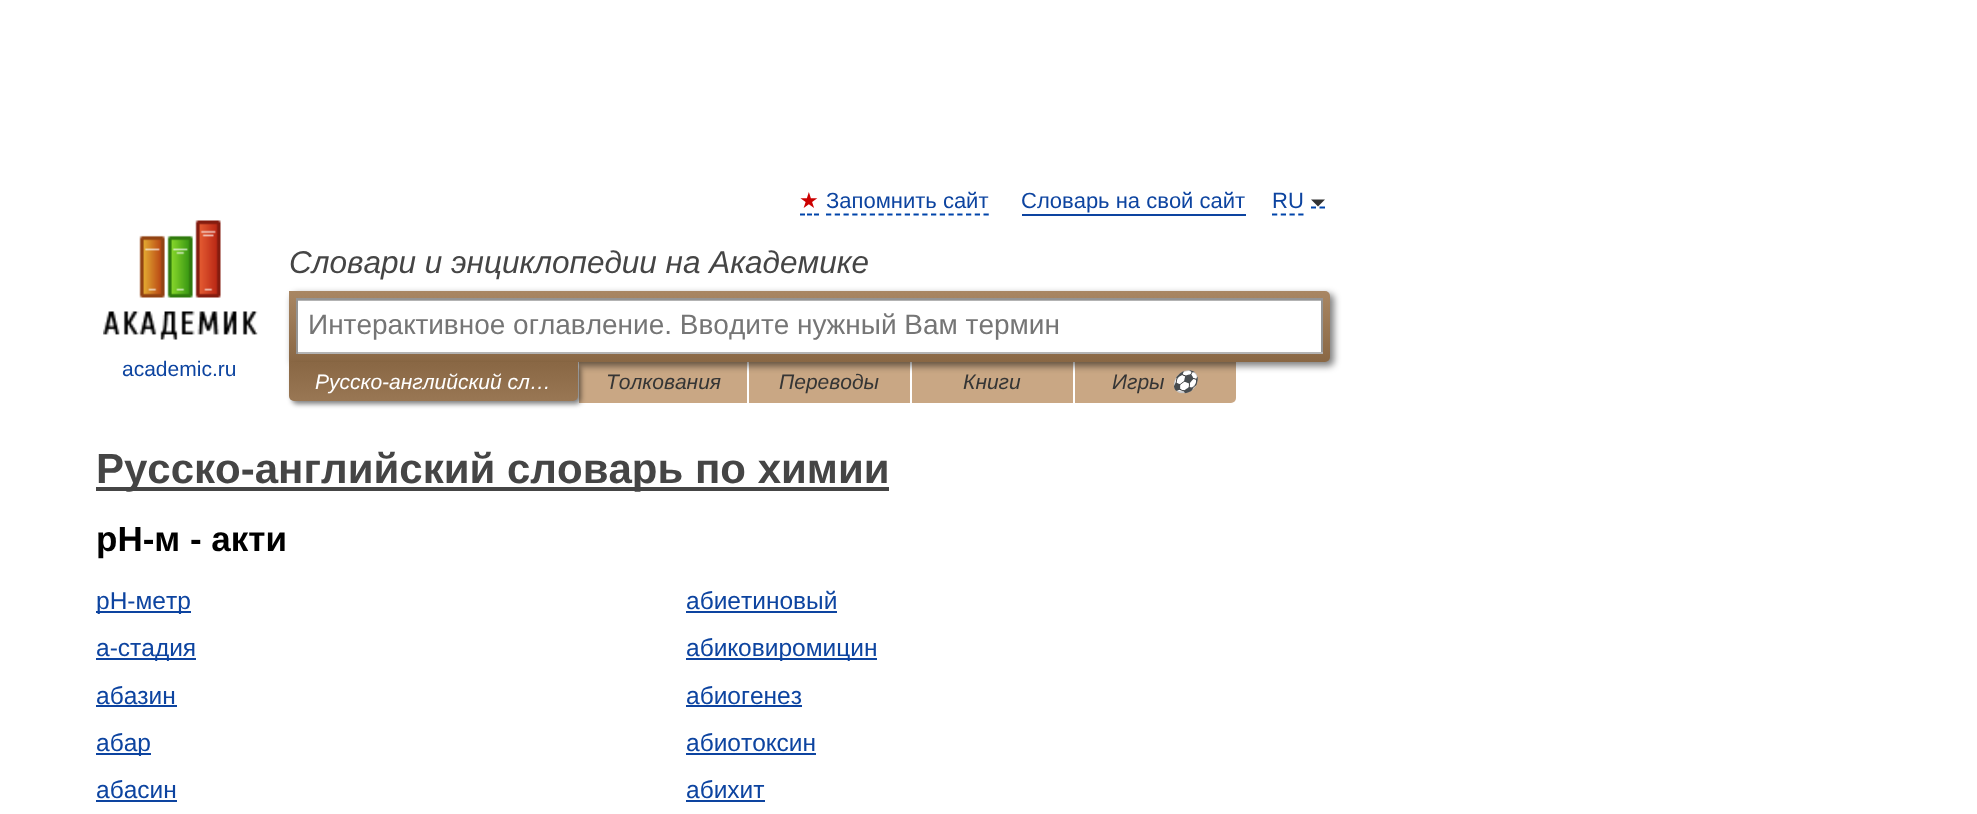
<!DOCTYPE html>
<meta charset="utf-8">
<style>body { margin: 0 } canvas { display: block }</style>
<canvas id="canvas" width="1977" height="814"></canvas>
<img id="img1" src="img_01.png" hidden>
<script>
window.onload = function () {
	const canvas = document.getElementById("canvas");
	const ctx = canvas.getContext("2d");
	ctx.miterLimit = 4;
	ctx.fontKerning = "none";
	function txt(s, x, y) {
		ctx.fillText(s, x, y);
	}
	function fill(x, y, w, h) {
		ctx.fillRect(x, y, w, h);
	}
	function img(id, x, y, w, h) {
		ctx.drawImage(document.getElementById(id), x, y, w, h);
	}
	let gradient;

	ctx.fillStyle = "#FFFFFF";
	fill(0, 0, 1977, 814);
	ctx.beginPath();
	ctx.moveTo(800, 214.5);
	ctx.lineTo(805, 214.5);
	ctx.moveTo(807, 214.5);
	ctx.lineTo(812, 214.5);
	ctx.moveTo(814, 214.5);
	ctx.lineTo(819, 214.5);
	ctx.strokeStyle = "#0044AA";
	ctx.lineWidth = 1.8;
	ctx.stroke();
	ctx.beginPath();
	ctx.moveTo(826, 214.5);
	ctx.lineTo(989, 214.5);
	ctx.setLineDash([5.25, 3.5]);
	ctx.stroke();
	ctx.fillStyle = "#0D44A0";
	fill(1022, 214, 224, 2);
	ctx.beginPath();
	ctx.moveTo(1272, 214.5);
	ctx.lineTo(1304, 214.5);
	ctx.stroke();
	ctx.beginPath();
	ctx.moveTo(1311, 207.5);
	ctx.lineTo(1316, 207.5);
	ctx.moveTo(1319.5, 207.5);
	ctx.lineTo(1325, 207.5);
	ctx.setLineDash([]);
	ctx.stroke();
	ctx.fillStyle = "#333333";
	ctx.beginPath();
	ctx.moveTo(1311, 199.5);
	ctx.lineTo(1325, 199.5);
	ctx.lineTo(1318, 206.5);
	ctx.closePath();
	ctx.fill();
	ctx.fillStyle = "#C9A784";
	fill(579, 362, 168, 41);
	fill(749, 362, 161, 41);
	fill(912, 362, 161, 41);
	ctx.beginPath();
	ctx.roundRect(1075, 362, 161, 41, [0, 0, 5, 0]);
	ctx.fill();
	ctx.fillStyle = "rgba(0, 0, 0, 0.5)";
	ctx.filter = "blur(3.5px)";
	ctx.beginPath();
	ctx.roundRect(292, 294, 1042, 72, 5);
	ctx.fill();
	ctx.filter = "none";
	gradient = ctx.createLinearGradient(809, 290, 809, 362);
	gradient.addColorStop(0, "#A98764");
	gradient.addColorStop(1, "#896744");
	ctx.fillStyle = gradient;
	ctx.beginPath();
	ctx.roundRect(289, 291, 1041, 71, [0, 5, 5, 0]);
	ctx.fill();
	ctx.fillStyle = "#FFFFFF";
	fill(298, 301, 1023, 51);
	ctx.fillStyle = "#B3B3B3";
	fill(298, 300, 1023, 1);
	ctx.fillStyle = "#949494";
	fill(296, 298, 1027, 2);
	fill(1321, 298, 2, 56);
	ctx.fillStyle = "#B4B4B4";
	fill(296, 352, 1027, 2);
	ctx.fillStyle = "#949494";
	fill(296, 298, 2, 56);
	img("img1", 103, 220, 155, 120);
	ctx.fillStyle = "rgba(0, 0, 0, 0.5)";
	ctx.filter = "blur(2.5px)";
	ctx.beginPath();
	ctx.roundRect(292, 366, 289, 38, 5);
	ctx.fill();
	ctx.filter = "none";
	gradient = ctx.createLinearGradient(433, 362, 433, 401);
	gradient.addColorStop(0, "#896744");
	gradient.addColorStop(1, "#997754");
	ctx.fillStyle = gradient;
	ctx.beginPath();
	ctx.roundRect(289, 362, 289, 39, [0, 0, 5, 5]);
	ctx.fill();
	ctx.fillStyle = "#454545";
	fill(96, 487, 793, 4);
	ctx.fillStyle = "#0D44A0";
	fill(96, 611, 95, 2);
	fill(96, 658, 100, 2);
	fill(96, 705, 81, 2);
	fill(96, 753, 55, 2);
	fill(96, 800, 81, 2);
	fill(686, 611, 151, 2);
	fill(686, 658, 191, 2);
	fill(686, 705, 116, 2);
	fill(686, 753, 130, 2);
	fill(686, 800, 79, 2);
	ctx.font = "22px DejaVu Sans";
	ctx.fillStyle = "#CC0000";
	txt("★", 799, 208);
	ctx.font = "22px Liberation Sans";
	ctx.fillStyle = "#0D44A0";
	txt("Запомнить сайт", 826, 208);
	txt("Словарь на свой сайт", 1021, 208);
	txt("RU", 1272, 208);
	ctx.font = "italic 31.5px Liberation Sans";
	ctx.fillStyle = "#454545";
	txt("Словари и энциклопедии на Академике", 289, 273);
	ctx.font = "28px Liberation Sans";
	ctx.fillStyle = "#757575";
	txt("Интерактивное оглавление. Вводите нужный Вам термин", 308, 334);
	ctx.font = "21px Liberation Sans";
	ctx.fillStyle = "#0D44A0";
	txt("academic.ru", 122, 376);
	ctx.font = "italic 21px Liberation Sans";
	ctx.fillStyle = "#FFFFFF";
	txt("Русско-английский сл…", 315, 389);
	ctx.fillStyle = "#353535";
	txt("Толкования", 606, 389);
	txt("Переводы", 779, 389);
	txt("Книги", 963, 389);
	txt("Игры", 1112, 389);
	ctx.font = "italic 21px Noto Color Emoji";
	txt("⚽", 1171, 389);
	ctx.font = "bold 42px Liberation Sans";
	ctx.fillStyle = "#454545";
	txt("Русско-английский словарь по химии", 96, 483);
	ctx.font = "bold 35px Liberation Sans";
	ctx.fillStyle = "#000000";
	txt("pН-м - акти", 96, 551);
	ctx.font = "24.5px Liberation Sans";
	ctx.fillStyle = "#0D44A0";
	txt("pН-метр", 96, 609);
	txt("а-стадия", 96, 656);
	txt("абазин", 96, 704);
	txt("абар", 96, 751);
	txt("абасин", 96, 798);
	txt("абиетиновый", 686, 609);
	txt("абиковиромицин", 686, 656);
	txt("абиогенез", 686, 704);
	txt("абиотоксин", 686, 751);
	txt("абихит", 686, 798);
};
</script>
